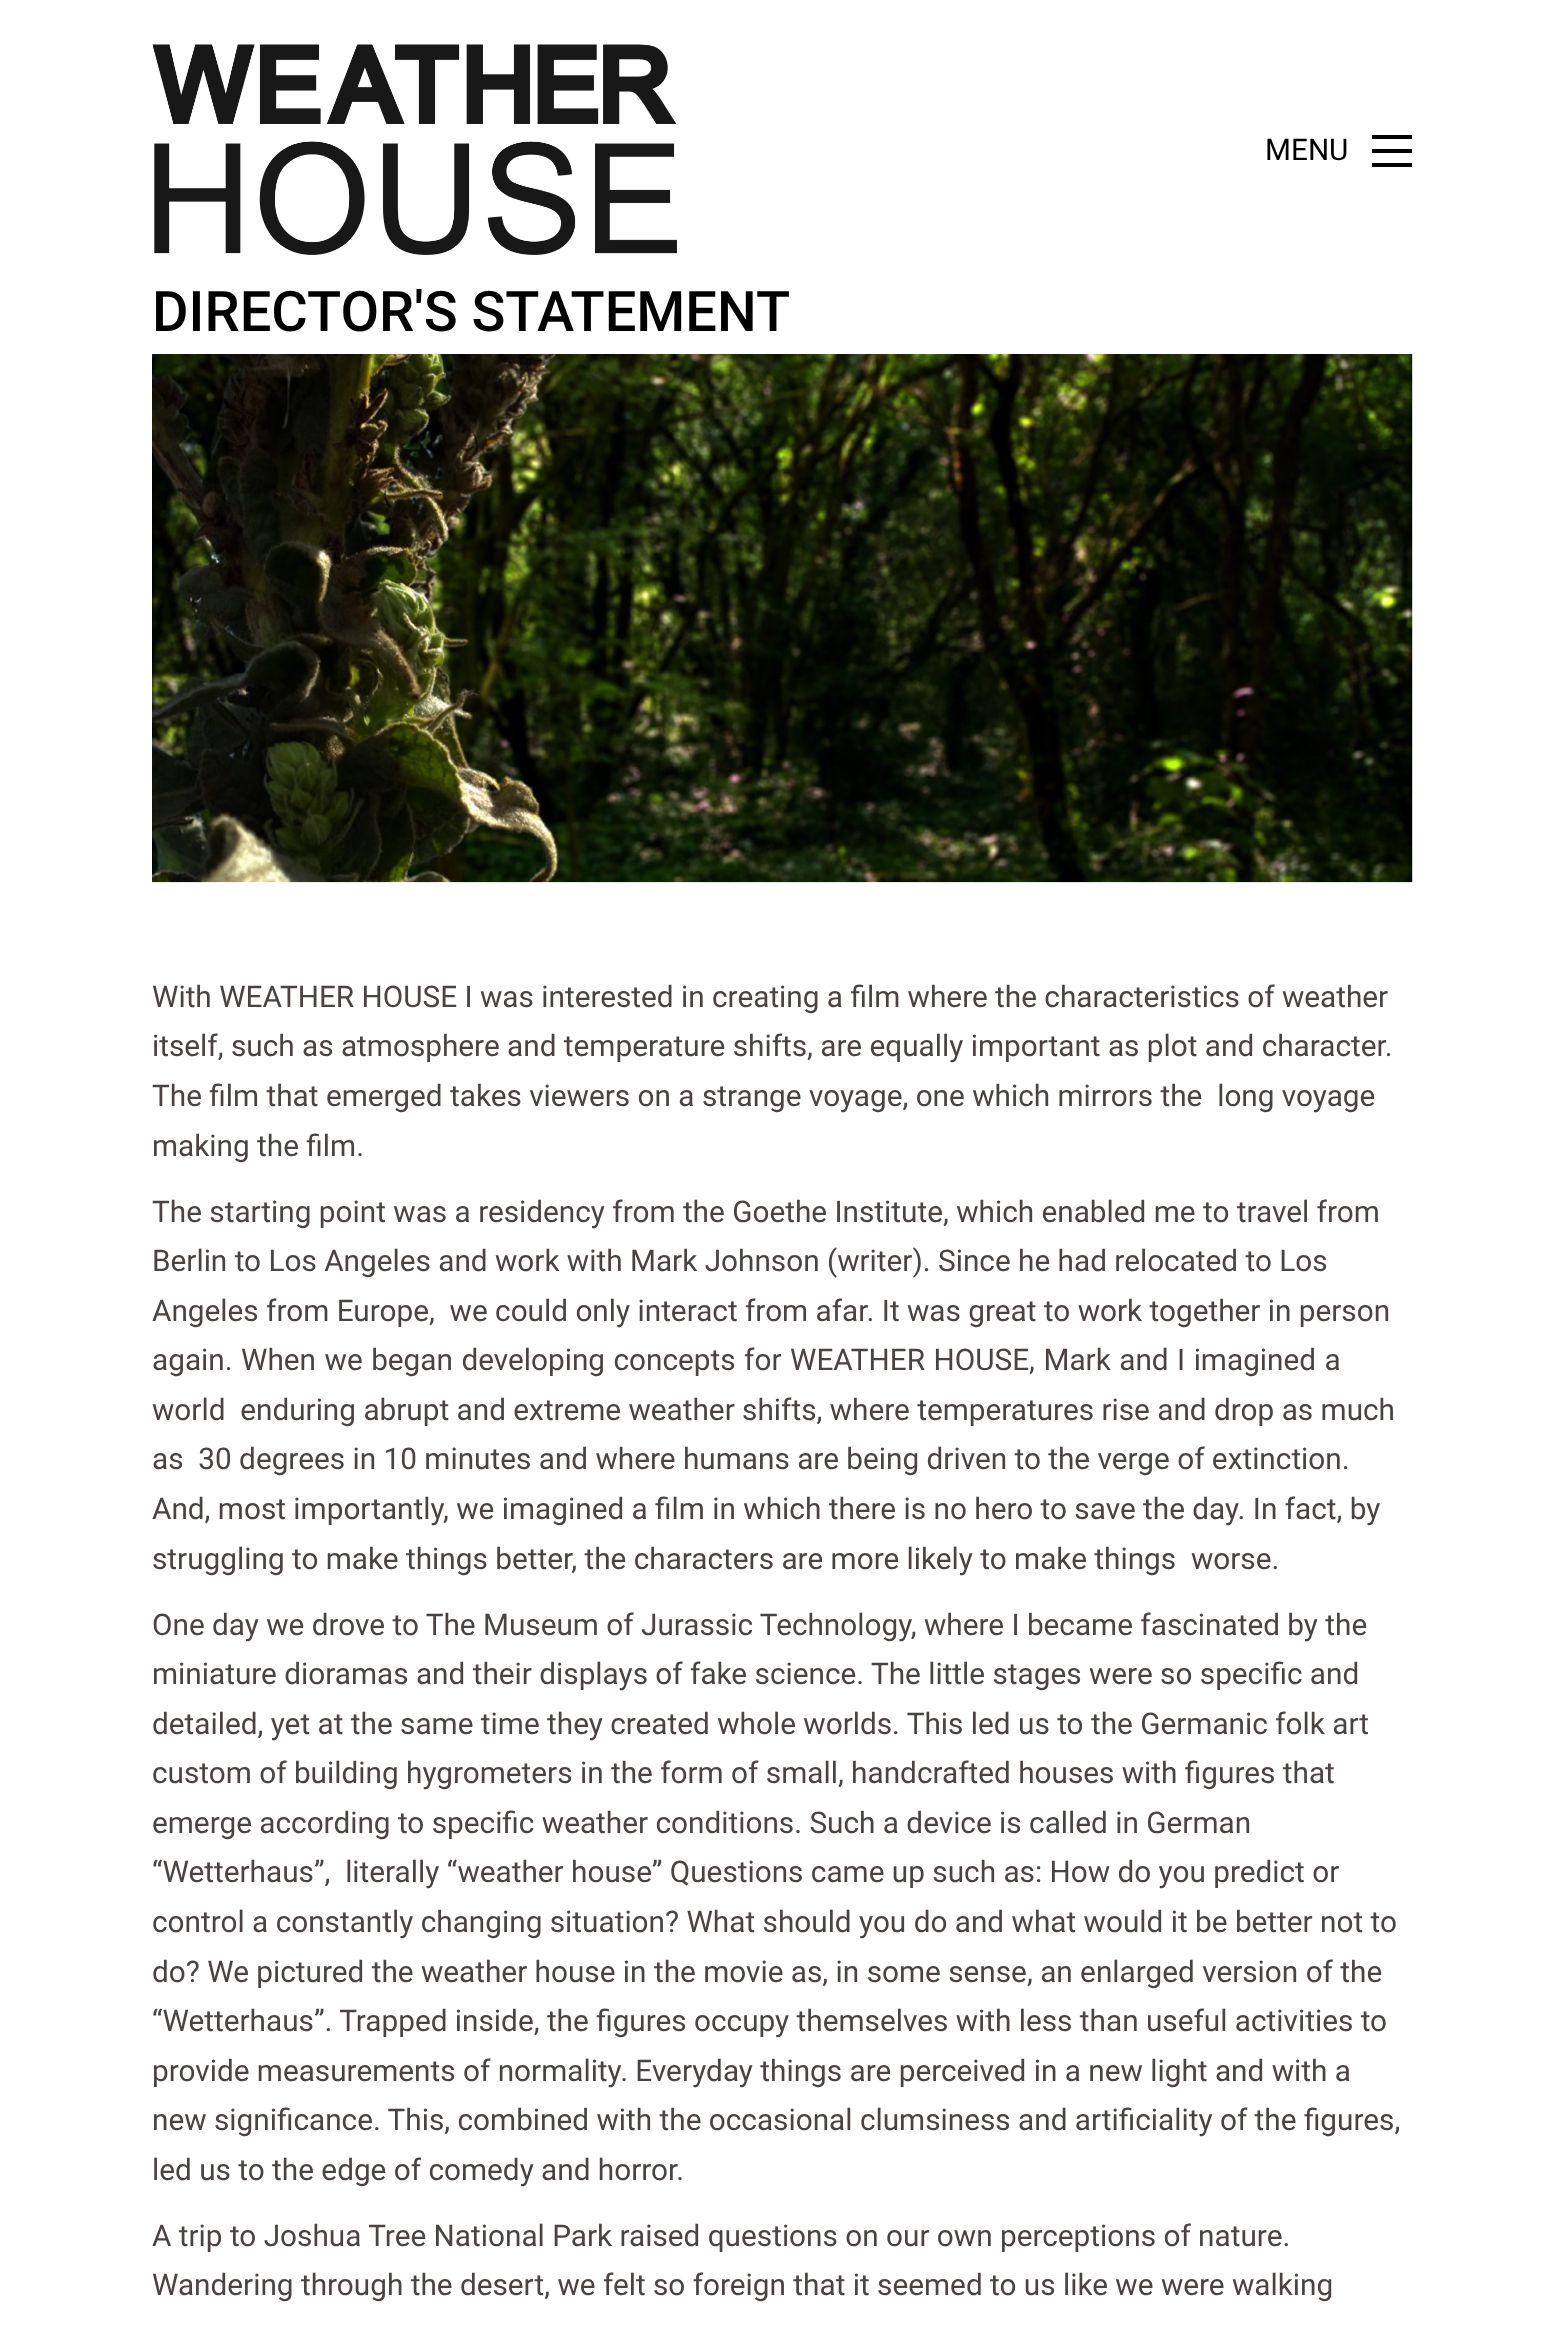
<!DOCTYPE html>
<meta charset="utf-8">
<style>body { margin: 0 } canvas { display: block }</style>
<canvas id="canvas" width="1564" height="2332"></canvas>
<img id="img1" src="img_01.png" hidden>
<img id="img2" src="img_02.png" hidden>
<script>
window.onload = function () {
	const canvas = document.getElementById("canvas");
	const ctx = canvas.getContext("2d");
	ctx.miterLimit = 4;
	ctx.fontKerning = "normal";
	function txt(s, x, y) {
		ctx.fillText(s, x, y);
	}
	function fill(x, y, w, h) {
		ctx.fillRect(x, y, w, h);
	}
	function img(id, x, y, w, h) {
		ctx.drawImage(document.getElementById(id), x, y, w, h);
	}

	ctx.fillStyle = "#FFFFFF";
	fill(0, 0, 1564, 2332);
	img("img1", 152, 44, 525, 211);
	ctx.fillStyle = "#000000";
	fill(1372, 135, 40, 4);
	fill(1372, 149, 40, 4);
	fill(1372, 163, 40, 4);
	img("img2", 152, 354, 1261, 529);
	ctx.font = "29.75px Roboto";
	txt("MENU", 1265, 160);
	ctx.font = "500 56px Roboto";
	txt("DIRECTOR'S STATEMENT", 152, 331);
	ctx.font = "29.75px Roboto";
	ctx.fillStyle = "#494342";
	txt("With WEATHER HOUSE I was interested in creating a film where the characteristics of weather", 152, 1007);
	txt("itself, such as atmosphere and temperature shifts, are equally important as plot and character.", 152, 1056);
	txt("The film that emerged takes viewers on a strange voyage, one which mirrors the  long voyage", 152, 1106);
	txt("making the film.", 152, 1156);
	txt("The starting point was a residency from the Goethe Institute, which enabled me to travel from", 152, 1222);
	txt("Berlin to Los Angeles and work with Mark Johnson (writer). Since he had relocated to Los", 152, 1271);
	txt("Angeles from Europe,  we could only interact from afar. It was great to work together in person", 152, 1321);
	ctx.wordSpacing = "1.1px";
	txt("again. When we began developing concepts for WEATHER HOUSE, Mark and I imagined a", 152, 1370);
	ctx.wordSpacing = "0px";
	txt("world  enduring abrupt and extreme weather shifts, where temperatures rise and drop as much", 152, 1420);
	txt("as  30 degrees in 10 minutes and where humans are being driven to the verge of extinction.", 152, 1469);
	txt("And, most importantly, we imagined a film in which there is no hero to save the day. In fact, by", 152, 1519);
	txt("struggling to make things better, the characters are more likely to make things  worse.", 152, 1569);
	txt("One day we drove to The Museum of Jurassic Technology, where I became fascinated by the", 152, 1635);
	txt("miniature dioramas and their displays of fake science. The little stages were so specific and", 152, 1684);
	txt("detailed, yet at the same time they created whole worlds. This led us to the Germanic folk art", 152, 1734);
	txt("custom of building hygrometers in the form of small, handcrafted houses with figures that", 152, 1783);
	txt("emerge according to specific weather conditions. Such a device is called in German", 152, 1833);
	txt("“Wetterhaus”,  literally “weather house” Questions came up such as: How do you predict or", 152, 1882);
	txt("control a constantly changing situation? What should you do and what would it be better not to", 152, 1932);
	txt("do? We pictured the weather house in the movie as, in some sense, an enlarged version of the", 152, 1982);
	txt("“Wetterhaus”. Trapped inside, the figures occupy themselves with less than useful activities to", 152, 2031);
	txt("provide measurements of normality. Everyday things are perceived in a new light and with a", 152, 2081);
	txt("new significance. This, combined with the occasional clumsiness and artificiality of the figures,", 152, 2130);
	txt("led us to the edge of comedy and horror.", 152, 2180);
	txt("A trip to Joshua Tree National Park raised questions on our own perceptions of nature.", 152, 2246);
	txt("Wandering through the desert, we felt so foreign that it seemed to us like we were walking", 152, 2295);
};
</script>
